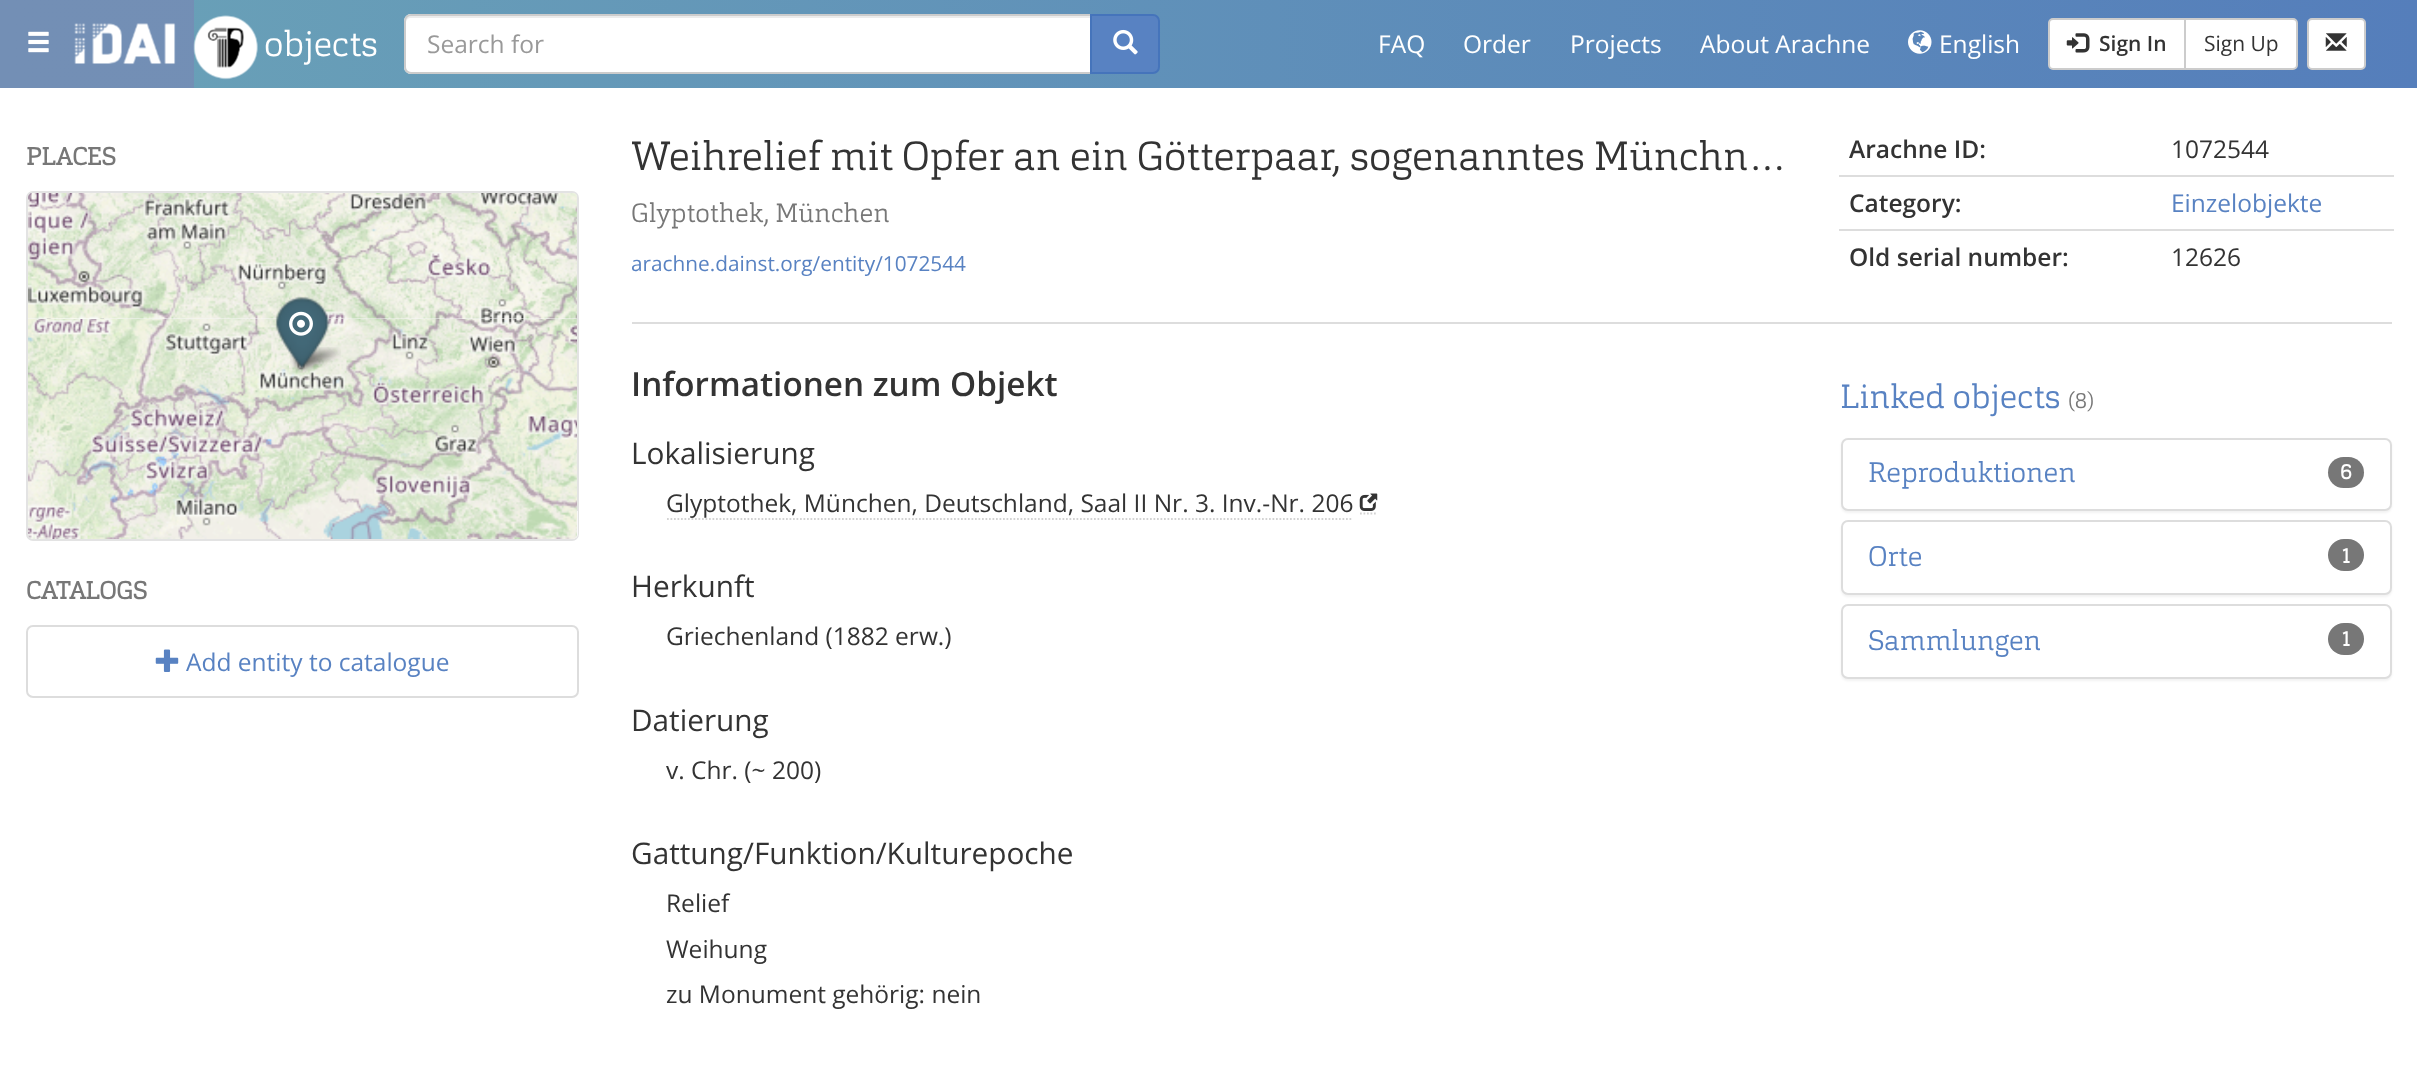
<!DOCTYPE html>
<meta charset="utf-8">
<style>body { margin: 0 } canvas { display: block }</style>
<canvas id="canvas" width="2417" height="1070"></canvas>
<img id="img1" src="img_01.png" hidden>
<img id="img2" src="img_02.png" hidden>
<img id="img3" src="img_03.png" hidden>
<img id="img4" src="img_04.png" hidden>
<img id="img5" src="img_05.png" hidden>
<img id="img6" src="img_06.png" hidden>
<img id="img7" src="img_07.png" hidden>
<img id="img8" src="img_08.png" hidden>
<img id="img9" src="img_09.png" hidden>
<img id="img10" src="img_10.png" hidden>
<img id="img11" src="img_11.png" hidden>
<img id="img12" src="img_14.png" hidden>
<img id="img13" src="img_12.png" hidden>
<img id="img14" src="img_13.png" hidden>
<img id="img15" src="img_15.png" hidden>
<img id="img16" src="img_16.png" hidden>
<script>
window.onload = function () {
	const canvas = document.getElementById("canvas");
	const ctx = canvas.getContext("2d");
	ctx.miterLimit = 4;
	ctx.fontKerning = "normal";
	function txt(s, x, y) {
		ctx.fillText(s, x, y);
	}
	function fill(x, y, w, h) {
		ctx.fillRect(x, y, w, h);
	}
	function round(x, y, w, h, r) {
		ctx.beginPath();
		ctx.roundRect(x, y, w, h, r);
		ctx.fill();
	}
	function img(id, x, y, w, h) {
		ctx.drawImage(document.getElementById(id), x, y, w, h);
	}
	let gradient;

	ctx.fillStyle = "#FFFFFF";
	fill(0, 0, 2417, 1070);
	gradient = ctx.createLinearGradient(0, 44, 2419, 44);
	gradient.addColorStop(0, "#6AA2B7");
	gradient.addColorStop(1, "#557EBB");
	ctx.fillStyle = gradient;
	fill(194, 0, 2223, 88);
	gradient = ctx.createLinearGradient(0, 44, 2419, 44);
	gradient.addColorStop(0, "#738FB5");
	gradient.addColorStop(1, "#718CB6");
	ctx.fillStyle = gradient;
	fill(0, 0, 194, 88);
	img("img1", 28, 31, 21, 22);
	img("img2", 74, 23, 102, 42);
	img("img3", 193, 15, 65, 65);
	ctx.fillStyle = "#FFFFFF";
	ctx.beginPath();
	ctx.roundRect(404, 14, 688, 60, [7, 0, 0, 7]);
	ctx.fill();
	ctx.fillStyle = "#ECECEC";
	ctx.beginPath();
	ctx.moveTo(411, 18);
	ctx.lineTo(1090, 18);
	ctx.lineTo(1090, 16);
	ctx.lineTo(411, 16);
	ctx.bezierCurveTo(408, 16, 406, 18, 406, 21);
	ctx.lineTo(406, 23);
	ctx.bezierCurveTo(406, 20, 408, 18, 411, 18);
	ctx.closePath();
	ctx.fill();
	ctx.beginPath();
	ctx.roundRect(405, 15, 686, 58, [6, 0, 0, 6]);
	ctx.strokeStyle = "#CCCCCC";
	ctx.lineWidth = 2;
	ctx.stroke();
	ctx.fillStyle = "#5882C2";
	ctx.beginPath();
	ctx.roundRect(1091, 15, 68, 58, [0, 6, 6, 0]);
	ctx.fill();
	ctx.strokeStyle = "#4574BB";
	ctx.stroke();
	img("img4", 1113, 29, 25, 26);
	img("img5", 1908, 30, 24, 24);
	ctx.fillStyle = "#FFFFFF";
	ctx.beginPath();
	ctx.roundRect(2049, 19, 136, 50, [4, 0, 0, 4]);
	ctx.fill();
	ctx.strokeStyle = "#CCCCCC";
	ctx.stroke();
	img("img6", 2066, 33, 24, 20);
	ctx.beginPath();
	ctx.roundRect(2185, 19, 112, 50, [0, 4, 4, 0]);
	ctx.fill();
	ctx.stroke();
	ctx.beginPath();
	ctx.roundRect(2308, 19, 57, 50, 4);
	ctx.fill();
	ctx.stroke();
	img("img7", 2325, 33, 22, 18);
	ctx.fillStyle = "#F5F5F5";
	ctx.beginPath();
	ctx.roundRect(27, 192, 551, 348, 6);
	ctx.fill();
	ctx.strokeStyle = "#E3E3E3";
	ctx.stroke();
	ctx.beginPath();
	ctx.roundRect(48, 212, 55, 108, 5);
	ctx.strokeStyle = "#C4C4C4";
	ctx.lineWidth = 4;
	ctx.stroke();
	ctx.fillStyle = "#FFFFFF";
	ctx.beginPath();
	ctx.roundRect(49, 266, 53, 53, [0, 0, 4, 4]);
	ctx.fill();
	img("img8", 28, 193, 261, 126);
	img("img9", 289, 193, 288, 126);
	ctx.fillStyle = "rgba(255, 255, 255, 0.7)";
	ctx.beginPath();
	ctx.roundRect(189, 511, 389, 28, [0, 0, 5, 0]);
	ctx.fill();
	img("img10", 28, 319, 261, 220);
	img("img11", 289, 319, 288, 220);
	img("img12", 290, 347, 51, 26);
	img("img13", 275, 296, 55, 73);
	img("img14", 289, 311, 24, 25);
	ctx.beginPath();
	ctx.roundRect(27, 626, 551, 71, 6);
	ctx.strokeStyle = "#DDDDDD";
	ctx.lineWidth = 2;
	ctx.stroke();
	img("img15", 155, 649, 24, 23);
	ctx.fillStyle = "#DDDDDD";
	fill(632, 322, 1760, 2);
	fill(1839, 175, 555, 2);
	fill(1839, 229, 555, 2);
	ctx.beginPath();
	ctx.moveTo(667, 519);
	ctx.lineTo(1353, 519);
	ctx.strokeStyle = "#D3D3D3";
	ctx.lineWidth = 1.8;
	ctx.setLineDash([1.75, 1.75]);
	ctx.stroke();
	ctx.beginPath();
	ctx.moveTo(1360, 513.5);
	ctx.lineTo(1377, 513.5);
	ctx.stroke();
	img("img16", 1359, 493, 19, 18);
	ctx.fillStyle = "rgba(0, 0, 0, 0.05)";
	ctx.filter = "blur(1px)";
	ctx.beginPath();
	ctx.roundRect(1841, 439, 551, 74, 7);
	ctx.fill();
	ctx.filter = "none";
	ctx.fillStyle = "#FFFFFF";
	ctx.beginPath();
	ctx.roundRect(1842, 439, 549, 71, 6);
	ctx.fill();
	ctx.strokeStyle = "#DDDDDD";
	ctx.lineWidth = 2;
	ctx.setLineDash([]);
	ctx.stroke();
	ctx.fillStyle = "#777777";
	round(2328, 457, 36, 31, 15.5);
	ctx.fillStyle = "rgba(0, 0, 0, 0.05)";
	ctx.filter = "blur(1px)";
	ctx.beginPath();
	ctx.roundRect(1841, 522, 551, 75, 7);
	ctx.fill();
	ctx.filter = "none";
	ctx.fillStyle = "#FFFFFF";
	ctx.beginPath();
	ctx.roundRect(1842, 521, 549, 73, 6);
	ctx.fill();
	ctx.stroke();
	ctx.fillStyle = "#777777";
	round(2328, 539, 36, 32, 16);
	ctx.fillStyle = "rgba(0, 0, 0, 0.05)";
	ctx.filter = "blur(1px)";
	ctx.beginPath();
	ctx.roundRect(1841, 606, 551, 75, 7);
	ctx.fill();
	ctx.filter = "none";
	ctx.fillStyle = "#FFFFFF";
	ctx.beginPath();
	ctx.roundRect(1842, 605, 549, 73, 6);
	ctx.fill();
	ctx.stroke();
	ctx.fillStyle = "#777777";
	round(2328, 623, 36, 32, 16);
	ctx.font = "300 35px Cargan";
	ctx.fillStyle = "#FFFFFF";
	txt("objects", 264, 56);
	ctx.font = "24.5px Open Sans";
	ctx.fillStyle = "#999999";
	txt("Search for", 427, 53);
	ctx.fillStyle = "#FFFFFF";
	txt("FAQ", 1378, 53);
	txt("Order", 1463, 53);
	txt("Projects", 1570, 53);
	txt("About Arachne", 1700, 53);
	txt("English", 1939, 53);
	ctx.font = "600 21px Open Sans";
	ctx.fillStyle = "#333333";
	txt("Sign In", 2099, 51);
	ctx.font = "21px Open Sans";
	txt("Sign Up", 2204, 51);
	ctx.font = "bold 24.5px Cargan";
	ctx.fillStyle = "#777777";
	txt("PLACES", 26, 165);
	txt("CATALOGS", 26, 599);
	ctx.font = "24.5px Open Sans";
	ctx.fillStyle = "#5882C2";
	txt("Add entity to catalogue", 186, 671);
	ctx.save();
	ctx.beginPath();
	ctx.rect(632, 131, 1157, 53);
	ctx.clip();
	ctx.font = "300 40.25px Cargan";
	ctx.fillStyle = "#333333";
	txt("Weihrelief mit Opfer an ein Götterpaar, sogenanntes Münchn…", 631, 170);
	ctx.restore();
	ctx.font = "300 26.25px Cargan";
	ctx.fillStyle = "#777777";
	txt("Glyptothek, München", 631, 222);
	ctx.font = "20.8px Open Sans";
	ctx.fillStyle = "#5882C2";
	txt("arachne.dainst.org/entity/1072544", 631, 271);
	ctx.font = "600 24.5px Open Sans";
	ctx.fillStyle = "#333333";
	txt("Arachne ID:", 1849, 158);
	ctx.font = "24.5px Open Sans";
	txt("1072544", 2171, 158);
	ctx.font = "600 24.5px Open Sans";
	txt("Category:", 1849, 212);
	ctx.font = "24.5px Open Sans";
	ctx.fillStyle = "#5882C2";
	txt("Einzelobjekte", 2171, 212);
	ctx.font = "600 24.5px Open Sans";
	ctx.fillStyle = "#333333";
	txt("Old serial number:", 1849, 266);
	ctx.font = "24.5px Open Sans";
	txt("12626", 2171, 266);
	ctx.font = "600 33.25px Open Sans";
	txt("Informationen zum Objekt", 631, 396);
	ctx.font = "29.75px Open Sans";
	txt("Lokalisierung", 631, 464);
	ctx.font = "24.5px Open Sans";
	txt("Glyptothek, München, Deutschland, Saal II Nr. 3. Inv.-Nr. 206", 666, 512);
	ctx.font = "29.75px Open Sans";
	txt("Herkunft", 631, 597);
	ctx.font = "24.5px Open Sans";
	txt("Griechenland (1882 erw.)", 666, 645);
	ctx.font = "29.75px Open Sans";
	txt("Datierung", 631, 731);
	ctx.font = "24.5px Open Sans";
	txt("v. Chr. (~ 200)", 666, 779);
	ctx.font = "29.75px Open Sans";
	txt("Gattung/Funktion/Kulturepoche", 631, 864);
	ctx.font = "24.5px Open Sans";
	txt("Relief", 666, 912);
	txt("Weihung", 666, 958);
	txt("zu Monument gehörig: nein", 666, 1003);
	ctx.font = "300 33.25px Cargan";
	ctx.fillStyle = "#5882C2";
	txt("Linked objects", 1840, 408);
	ctx.font = "300 22px Cargan";
	ctx.fillStyle = "#777777";
	txt("(8)", 2068, 408);
	ctx.font = "300 28px Cargan";
	ctx.fillStyle = "#5882C2";
	txt("Reproduktionen", 1868, 482);
	ctx.font = "bold 21px Cargan";
	ctx.fillStyle = "#FFFFFF";
	txt("6", 2340, 479);
	ctx.font = "300 28px Cargan";
	ctx.fillStyle = "#5882C2";
	txt("Orte", 1868, 566);
	ctx.font = "bold 21px Cargan";
	ctx.fillStyle = "#FFFFFF";
	txt("1", 2340, 563);
	ctx.font = "300 28px Cargan";
	ctx.fillStyle = "#5882C2";
	txt("Sammlungen", 1868, 650);
	ctx.font = "bold 21px Cargan";
	ctx.fillStyle = "#FFFFFF";
	txt("1", 2340, 646);
};
</script>
